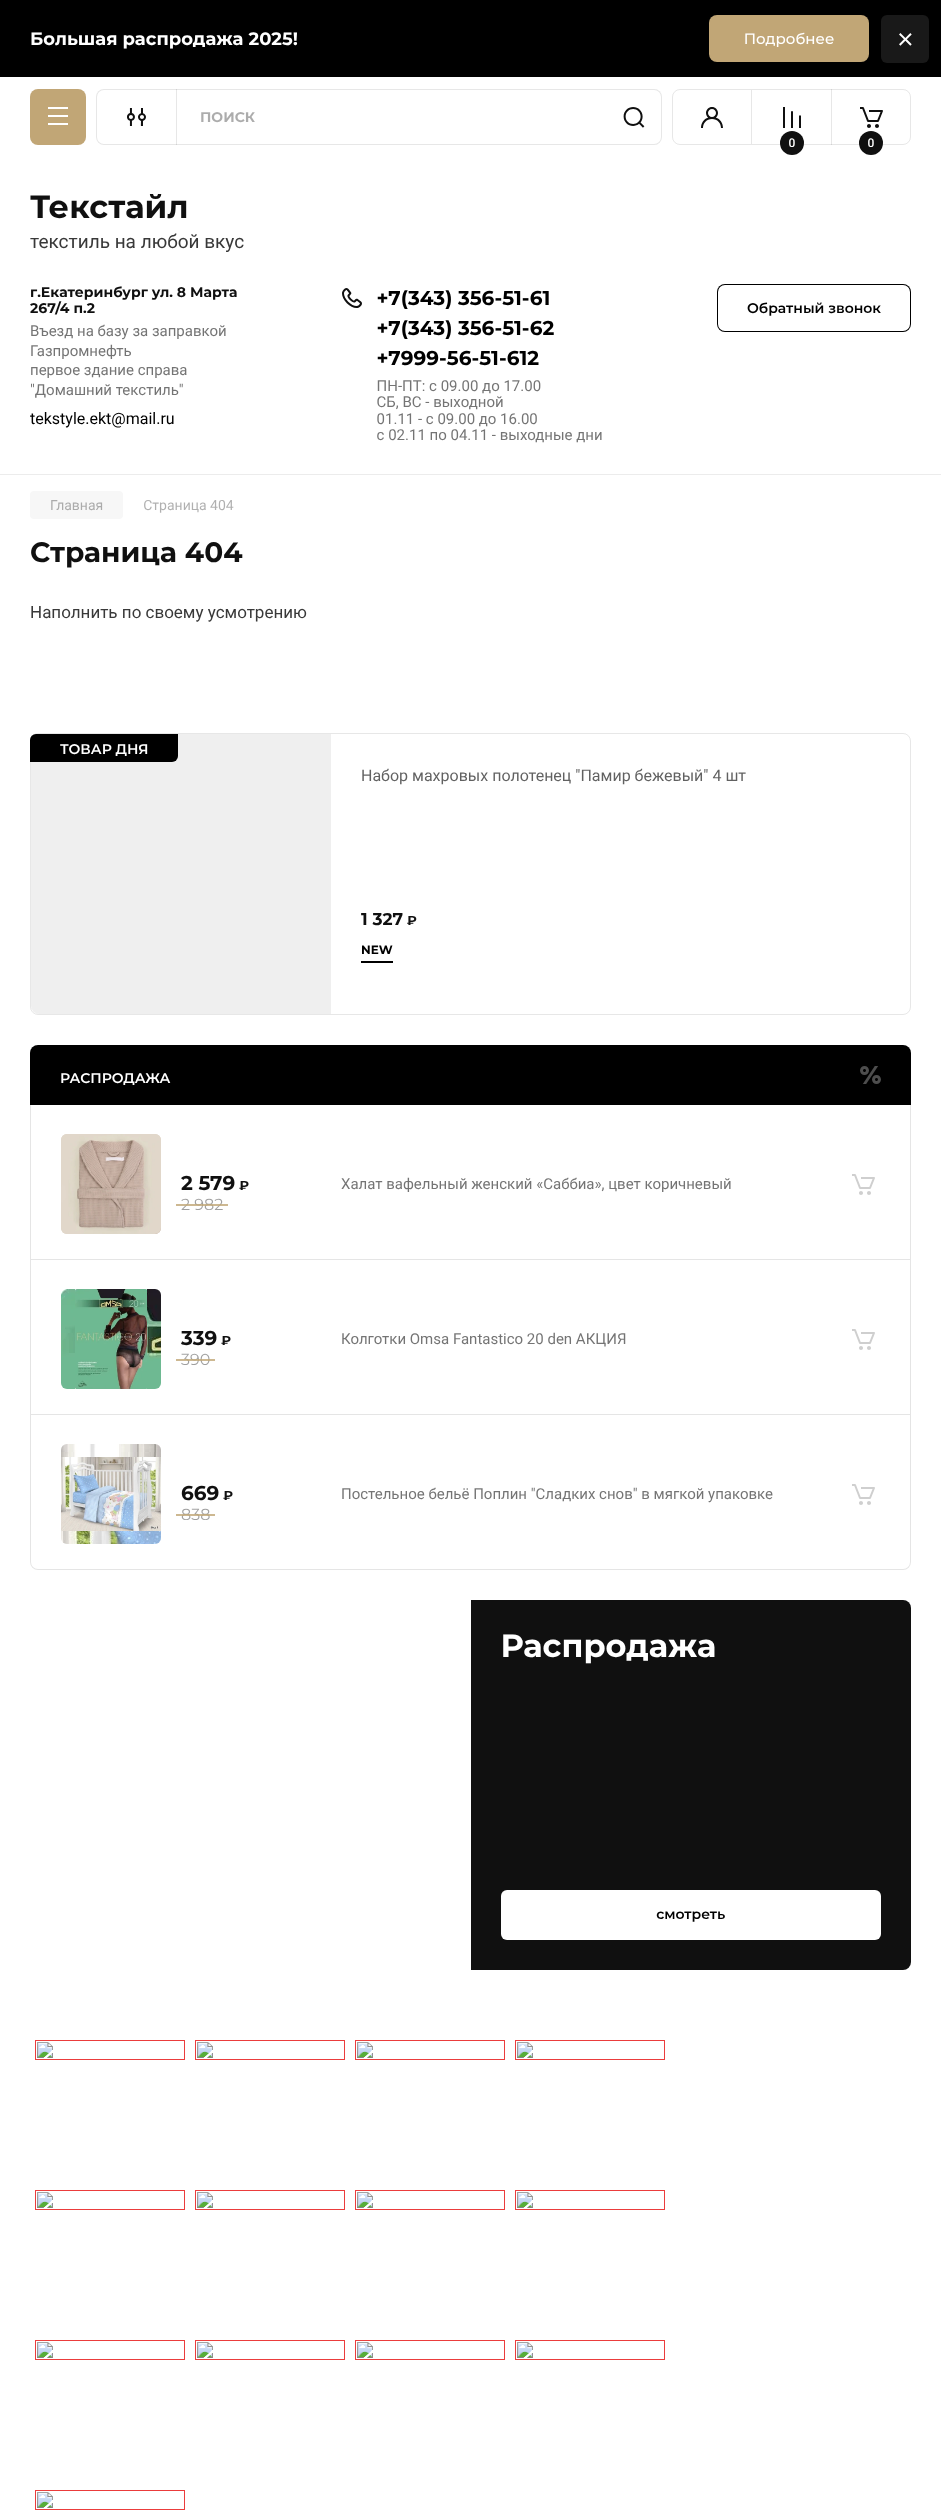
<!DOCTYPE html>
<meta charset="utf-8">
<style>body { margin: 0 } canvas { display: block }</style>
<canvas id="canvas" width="941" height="2511"></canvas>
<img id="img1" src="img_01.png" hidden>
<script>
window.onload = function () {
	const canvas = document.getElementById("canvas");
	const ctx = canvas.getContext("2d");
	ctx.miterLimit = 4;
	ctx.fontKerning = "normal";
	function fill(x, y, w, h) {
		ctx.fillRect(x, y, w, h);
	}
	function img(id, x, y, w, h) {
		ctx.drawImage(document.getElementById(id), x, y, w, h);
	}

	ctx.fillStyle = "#FFFFFF";
	fill(0, 0, 941, 2511);
	img("img1", 0, 0, 941, 2510);
};
</script>
